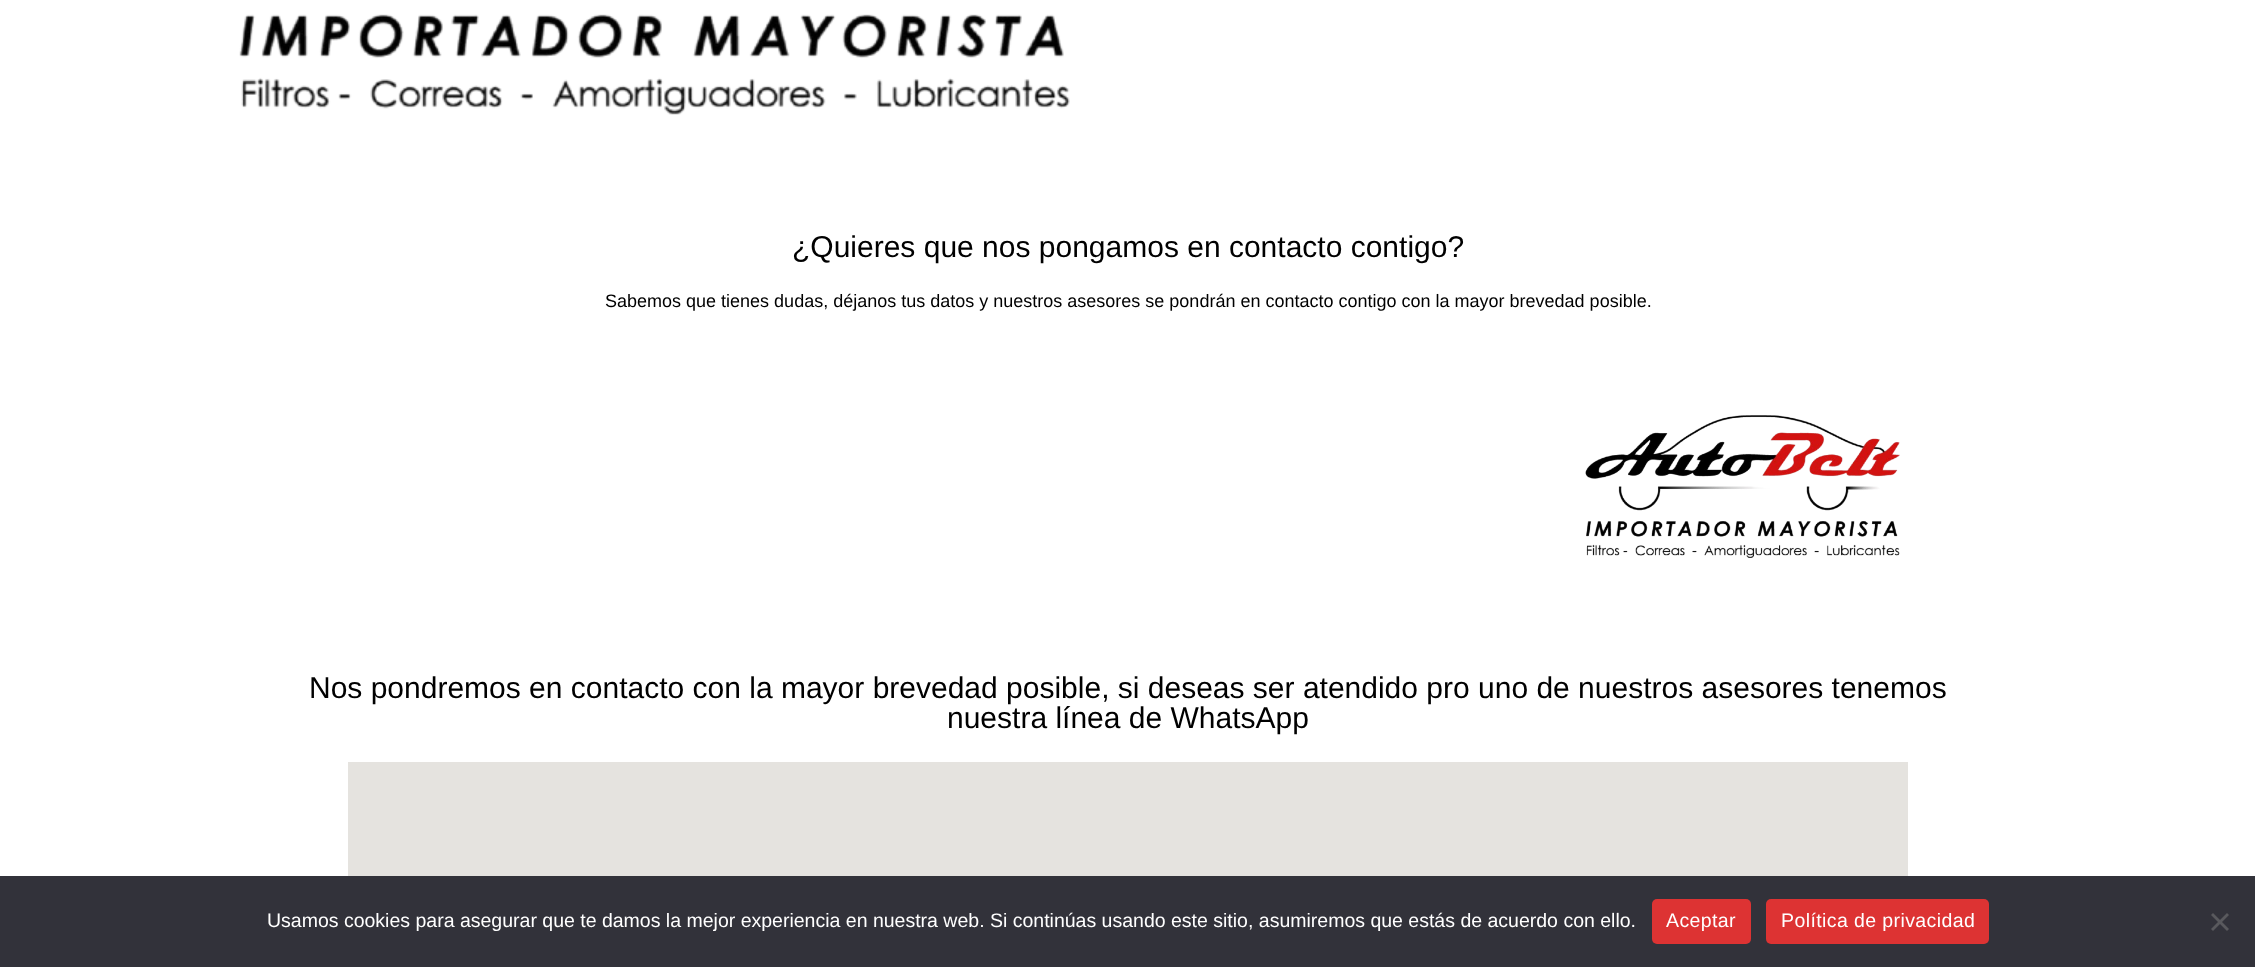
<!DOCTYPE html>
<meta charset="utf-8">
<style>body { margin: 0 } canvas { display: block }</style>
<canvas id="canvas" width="2255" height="967"></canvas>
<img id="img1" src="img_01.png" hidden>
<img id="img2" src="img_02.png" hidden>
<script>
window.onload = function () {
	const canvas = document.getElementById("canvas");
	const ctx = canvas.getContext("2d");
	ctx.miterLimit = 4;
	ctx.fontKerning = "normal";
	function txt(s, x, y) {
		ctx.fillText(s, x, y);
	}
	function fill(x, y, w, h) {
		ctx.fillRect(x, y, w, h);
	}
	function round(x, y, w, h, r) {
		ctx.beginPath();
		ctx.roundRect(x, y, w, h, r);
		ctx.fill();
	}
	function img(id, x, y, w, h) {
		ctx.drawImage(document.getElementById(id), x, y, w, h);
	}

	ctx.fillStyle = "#FFFFFF";
	fill(0, 0, 2255, 967);
	img("img1", 239, 14, 831, 101);
	img("img2", 1585, 415, 315, 143);
	ctx.fillStyle = "#E5E3DF";
	fill(348, 762, 1560, 114);
	ctx.fillStyle = "#32323A";
	fill(0, 876, 2255, 91);
	ctx.fillStyle = "#DD3333";
	round(1652, 899, 99, 45, 5);
	round(1766, 899, 223, 45, 5);
	ctx.fillStyle = "#59595D";
	ctx.beginPath();
	ctx.moveTo(2227, 913);
	ctx.lineTo(2229, 915);
	ctx.lineTo(2213, 931);
	ctx.lineTo(2211, 929);
	ctx.closePath();
	ctx.fill();
	ctx.beginPath();
	ctx.moveTo(2211, 915);
	ctx.lineTo(2213, 913);
	ctx.lineTo(2229, 929);
	ctx.lineTo(2227, 931);
	ctx.closePath();
	ctx.fill();
	ctx.font = "30px Liberation Sans";
	ctx.fillStyle = "#000000";
	txt("¿Quieres que nos pongamos en contacto contigo?", 792, 257);
	ctx.font = "18px Liberation Sans";
	txt("Sabemos que tienes dudas, déjanos tus datos y nuestros asesores se pondrán en contacto contigo con la mayor brevedad posible.", 605, 307);
	ctx.font = "30px Liberation Sans";
	txt("Nos pondremos en contacto con la mayor brevedad posible, si deseas ser atendido pro uno de nuestros asesores tenemos", 309, 698);
	txt("nuestra línea de WhatsApp", 947, 728);
	ctx.font = "19.5px Liberation Sans";
	ctx.fillStyle = "#FFFFFF";
	txt("Usamos cookies para asegurar que te damos la mejor experiencia en nuestra web. Si continúas usando este sitio, asumiremos que estás de acuerdo con ello.", 267, 927);
	ctx.letterSpacing = "0.4px";
	txt("Aceptar", 1666, 927);
	txt("Política de privacidad", 1781, 927);
};
</script>
